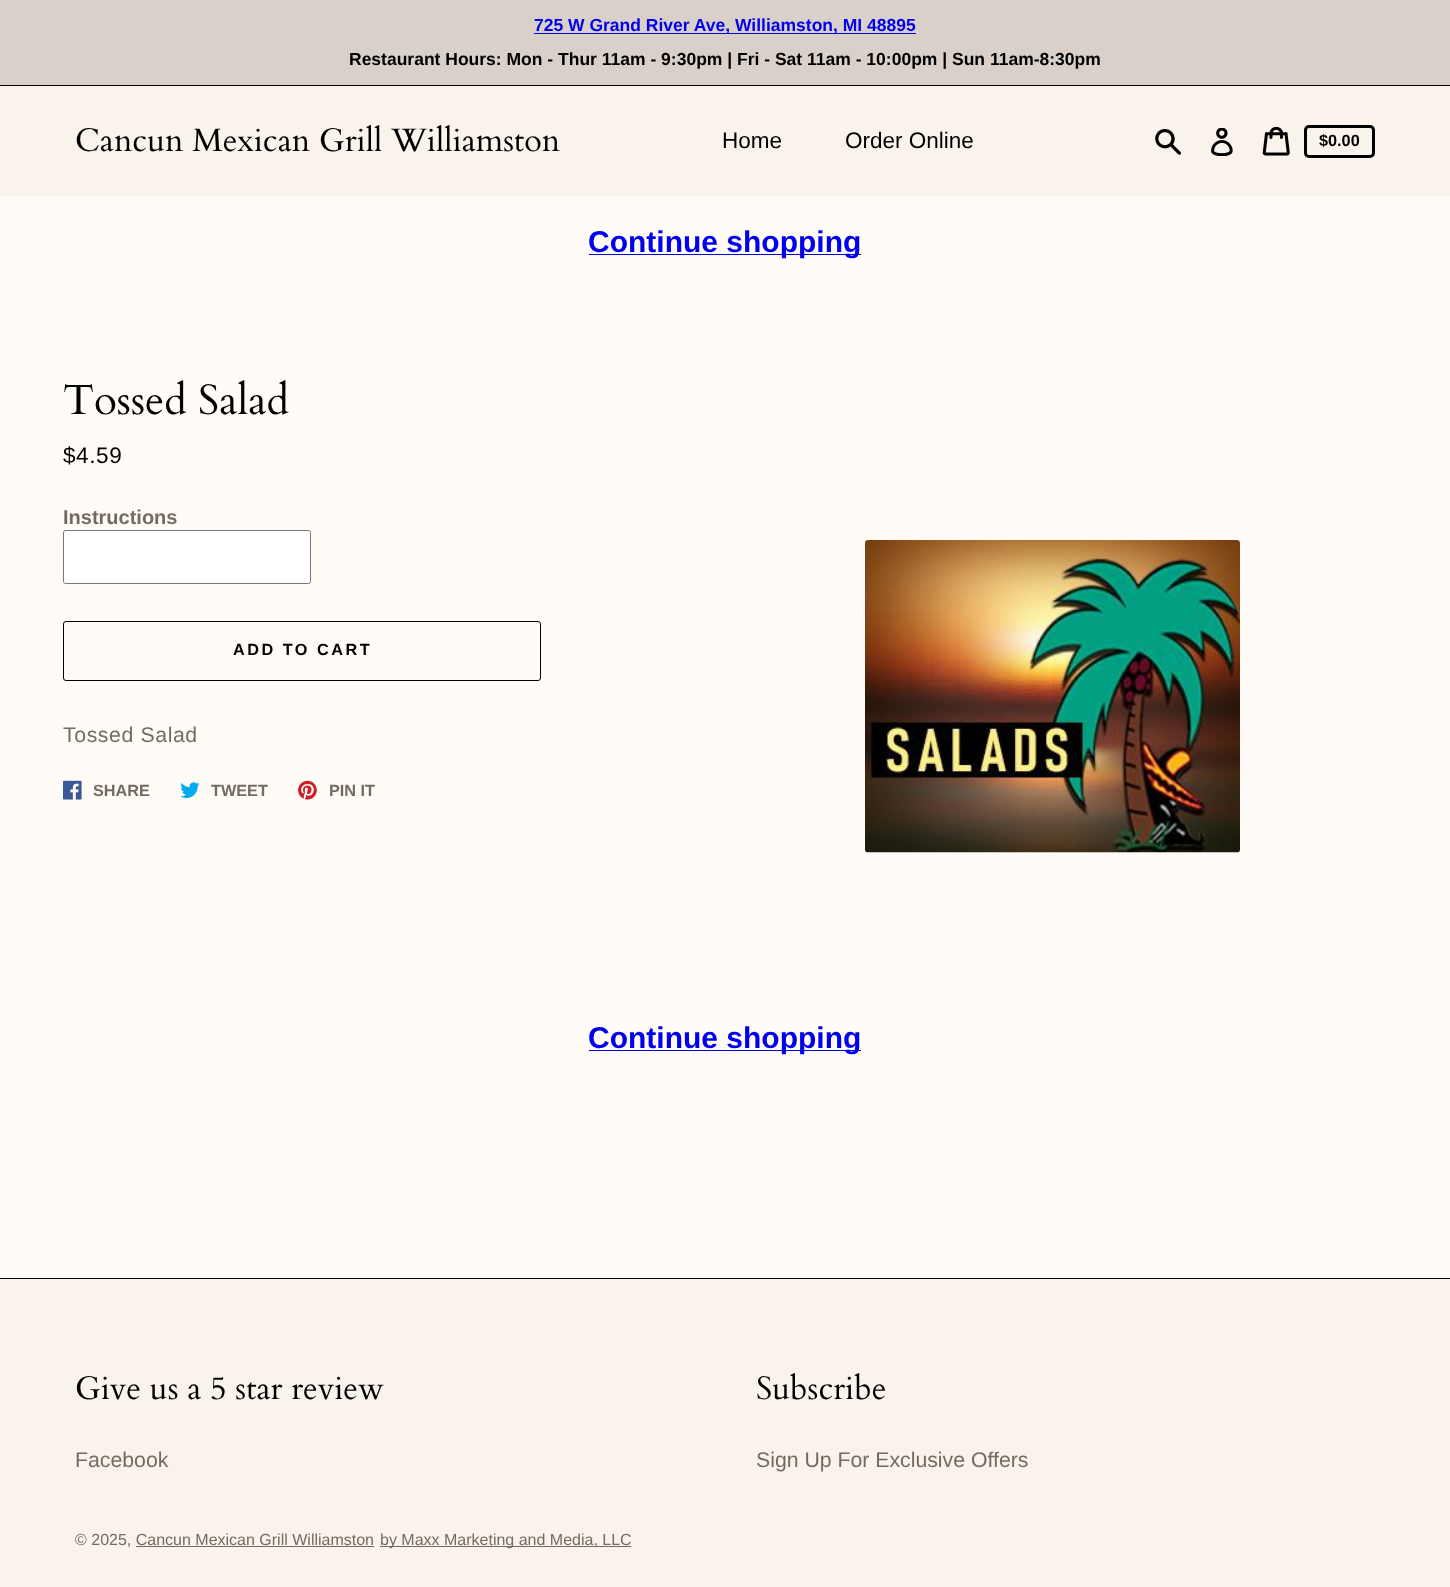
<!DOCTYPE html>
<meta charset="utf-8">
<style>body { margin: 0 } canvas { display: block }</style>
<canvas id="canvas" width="1450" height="1587"></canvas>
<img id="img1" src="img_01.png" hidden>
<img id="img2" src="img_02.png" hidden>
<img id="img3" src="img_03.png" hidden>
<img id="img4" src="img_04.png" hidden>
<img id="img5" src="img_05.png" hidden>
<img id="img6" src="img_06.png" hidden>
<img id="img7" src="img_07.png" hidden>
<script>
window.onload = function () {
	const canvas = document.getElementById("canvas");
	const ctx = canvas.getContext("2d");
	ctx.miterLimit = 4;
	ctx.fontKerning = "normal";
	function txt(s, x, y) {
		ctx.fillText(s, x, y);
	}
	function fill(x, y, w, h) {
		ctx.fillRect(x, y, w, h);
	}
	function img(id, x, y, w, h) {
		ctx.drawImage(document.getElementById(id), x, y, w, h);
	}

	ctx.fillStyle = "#FFFBF6";
	fill(0, 0, 1450, 1587);
	ctx.fillStyle = "#DAD0CA";
	fill(0, 0, 1450, 85);
	ctx.fillStyle = "#000000";
	fill(0, 85, 1450, 1);
	ctx.fillStyle = "#0000EE";
	fill(534, 33, 382, 1);
	ctx.fillStyle = "#FAF3EC";
	fill(0, 86, 1450, 110);
	img("img1", 1155, 128, 26, 27);
	img("img2", 1211, 128, 22, 28);
	img("img3", 1262, 126, 28, 30);
	ctx.beginPath();
	ctx.roundRect(1305.5, 126.5, 68, 30, 3.5);
	ctx.strokeStyle = "#000000";
	ctx.lineWidth = 3;
	ctx.stroke();
	ctx.fillStyle = "#0000EE";
	fill(589, 254, 272, 1);
	ctx.fillStyle = "#FFFFFF";
	ctx.beginPath();
	ctx.roundRect(63.5, 530.5, 247, 53, 2);
	ctx.fill();
	ctx.strokeStyle = "#767676";
	ctx.lineWidth = 1;
	ctx.stroke();
	ctx.beginPath();
	ctx.roundRect(63.5, 621.5, 477, 59, 2.5);
	ctx.strokeStyle = "#000000";
	ctx.stroke();
	img("img4", 63, 780, 19, 20);
	img("img5", 180, 782, 20, 16);
	img("img6", 298, 780, 19, 20);
	img("img7", 865, 540, 375, 313);
	ctx.fillStyle = "#0000EE";
	fill(589, 1050, 272, 1);
	ctx.fillStyle = "#FAF3EC";
	fill(0, 1279, 1450, 308);
	ctx.fillStyle = "#000000";
	fill(0, 1278, 1450, 1);
	ctx.fillStyle = "#746B60";
	fill(136, 1546, 238, 1);
	fill(380, 1546, 251, 1);
	ctx.font = "bold 17.5px Liberation Sans";
	ctx.fillStyle = "#0000EE";
	txt("725 W Grand River Ave, Williamston, MI 48895", 534, 31);
	ctx.fillStyle = "#000000";
	txt("Restaurant Hours: Mon - Thur 11am - 9:30pm | Fri - Sat 11am - 10:00pm | Sun 11am-8:30pm", 349, 65);
	ctx.font = "32.5px Cardo";
	txt("Cancun Mexican Grill Williamston", 75, 151);
	ctx.font = "22.5px Liberation Sans";
	txt("Home", 722, 148);
	txt("Order Online", 845, 148);
	ctx.font = "bold 16.25px Liberation Sans";
	txt("$0.00", 1319, 146);
	ctx.font = "bold 30px Liberation Sans";
	ctx.fillStyle = "#0000EE";
	txt("Continue shopping", 588, 252);
	ctx.font = "42.25px Cardo";
	ctx.fillStyle = "#000000";
	txt("Tossed Salad", 63, 414);
	ctx.letterSpacing = "0.6px";
	ctx.font = "22.5px Liberation Sans";
	txt("$4.59", 63, 463);
	ctx.letterSpacing = "0px";
	ctx.font = "bold 20px Liberation Sans";
	ctx.fillStyle = "#746B60";
	txt("Instructions", 63, 524);
	ctx.letterSpacing = "2.5px";
	ctx.font = "bold 16.25px Liberation Sans";
	ctx.fillStyle = "#000000";
	txt("ADD TO CART", 233, 655);
	ctx.letterSpacing = "0.6px";
	ctx.font = "21.25px Liberation Sans";
	ctx.fillStyle = "#746B60";
	txt("Tossed Salad", 63, 742);
	ctx.letterSpacing = "0px";
	ctx.font = "bold 16.25px Liberation Sans";
	txt("SHARE", 93, 796);
	txt("TWEET", 211, 796);
	txt("PIN IT", 329, 796);
	ctx.font = "bold 30px Liberation Sans";
	ctx.fillStyle = "#0000EE";
	txt("Continue shopping", 588, 1048);
	ctx.font = "32.5px Cardo";
	ctx.fillStyle = "#000000";
	txt("Give us a 5 star review", 75, 1399);
	ctx.font = "21.25px Liberation Sans";
	ctx.fillStyle = "#746B60";
	txt("Facebook", 75, 1467);
	ctx.font = "32.5px Cardo";
	ctx.fillStyle = "#000000";
	txt("Subscribe", 756, 1399);
	ctx.font = "21.25px Liberation Sans";
	ctx.fillStyle = "#746B60";
	txt("Sign Up For Exclusive Offers", 756, 1467);
	ctx.font = "16px Liberation Sans";
	txt("© 2025, Cancun Mexican Grill Williamston", 75, 1545);
	txt("by Maxx Marketing and Media, LLC", 380, 1545);
};
</script>
